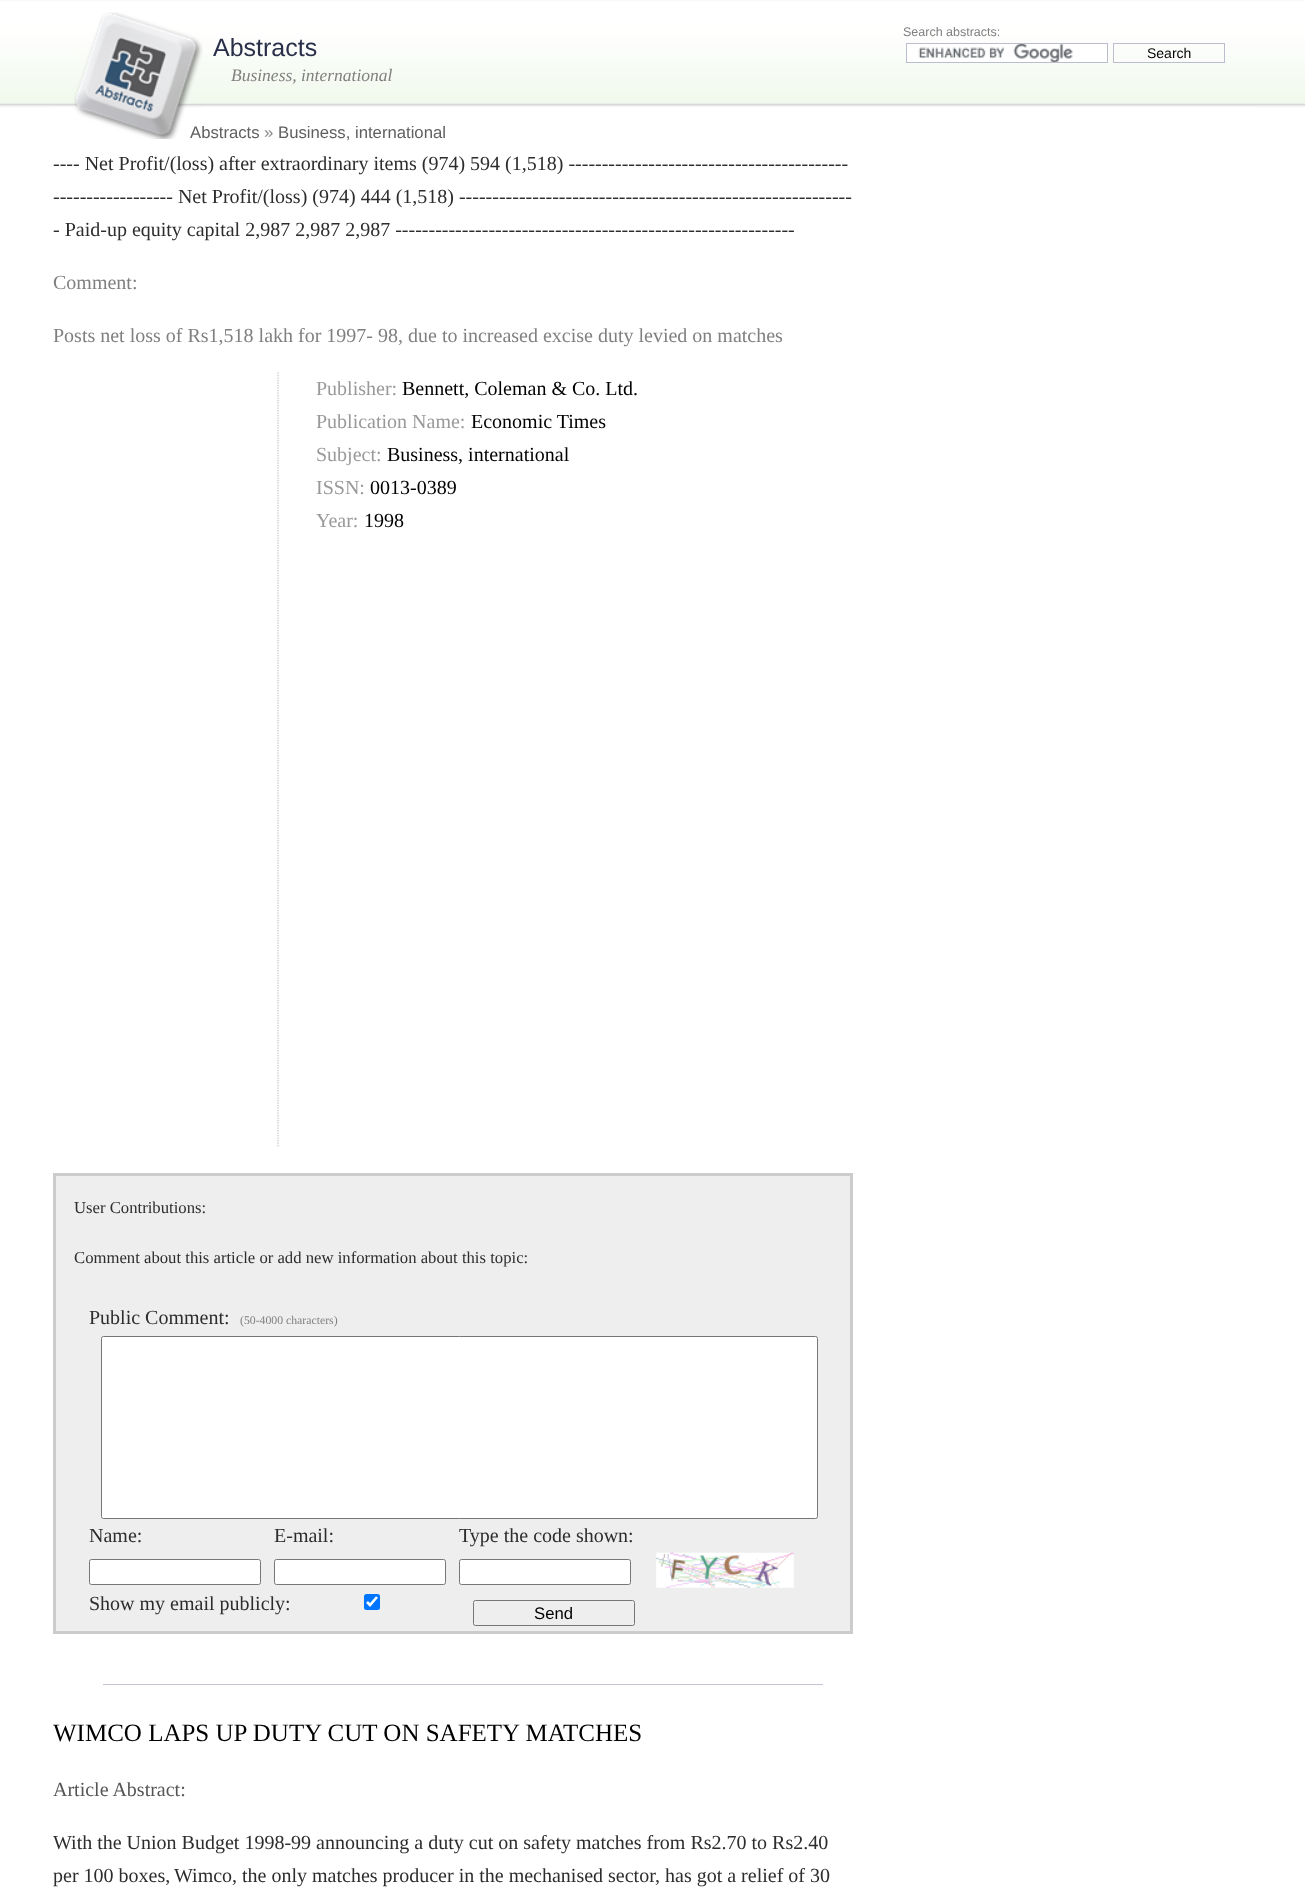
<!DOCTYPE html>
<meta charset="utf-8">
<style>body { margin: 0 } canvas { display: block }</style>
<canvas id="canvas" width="1305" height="1887"></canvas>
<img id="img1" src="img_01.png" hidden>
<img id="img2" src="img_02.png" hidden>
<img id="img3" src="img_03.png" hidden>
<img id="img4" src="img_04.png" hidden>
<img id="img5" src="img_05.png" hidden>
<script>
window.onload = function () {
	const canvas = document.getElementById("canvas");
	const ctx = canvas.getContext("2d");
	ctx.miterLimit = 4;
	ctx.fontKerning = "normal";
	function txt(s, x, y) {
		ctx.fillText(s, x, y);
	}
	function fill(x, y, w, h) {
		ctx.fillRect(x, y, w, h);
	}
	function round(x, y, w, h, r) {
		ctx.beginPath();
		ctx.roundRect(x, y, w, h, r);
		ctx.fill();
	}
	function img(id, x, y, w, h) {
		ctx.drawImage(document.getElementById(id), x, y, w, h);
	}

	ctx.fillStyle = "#FFFFFF";
	fill(0, 0, 1305, 1887);
	img("img1", 0, 0, 1305, 109);
	fill(53, 107, 1200, 1);
	img("img2", 53, 0, 1200, 107);
	img("img3", 73, 12, 130, 127);
	fill(907, 44, 200, 18);
	img("img4", 918, 44, 155, 18);
	ctx.strokeStyle = "#BBBDCD";
	ctx.strokeRect(906.5, 43.5, 201, 19);
	ctx.fillStyle = "#FCFCFA";
	fill(1114, 58, 110, 4);
	ctx.strokeRect(1113.5, 43.5, 111, 19);
	ctx.beginPath();
	ctx.moveTo(278, 372.5);
	ctx.lineTo(278, 1147.5);
	ctx.strokeStyle = "#C0C0C0";
	ctx.lineWidth = 1.2;
	ctx.setLineDash([1.25, 1.25]);
	ctx.stroke();
	ctx.fillStyle = "#EEEEEE";
	ctx.beginPath();
	ctx.rect(54.5, 1174.5, 797, 458);
	ctx.fill();
	ctx.strokeStyle = "#CCCCCC";
	ctx.lineWidth = 3;
	ctx.setLineDash([]);
	ctx.stroke();
	ctx.fillStyle = "#FFFFFF";
	ctx.beginPath();
	ctx.roundRect(101.5, 1336.5, 716, 182, 2);
	ctx.fill();
	ctx.strokeStyle = "#767676";
	ctx.lineWidth = 1;
	ctx.stroke();
	ctx.beginPath();
	ctx.roundRect(89.5, 1559.5, 171, 25, 2);
	ctx.fill();
	ctx.stroke();
	ctx.beginPath();
	ctx.roundRect(274.5, 1559.5, 171, 25, 2);
	ctx.fill();
	ctx.stroke();
	ctx.beginPath();
	ctx.roundRect(459.5, 1559.5, 171, 25, 2);
	ctx.fill();
	ctx.stroke();
	img("img5", 656, 1552, 138, 36);
	ctx.fillStyle = "#0075FF";
	round(364, 1594, 16, 16, 2.5);
	ctx.beginPath();
	ctx.moveTo(367, 1602);
	ctx.lineTo(370, 1605);
	ctx.lineTo(377, 1597);
	ctx.strokeStyle = "#FFFFFF";
	ctx.lineWidth = 2.6;
	ctx.stroke();
	ctx.beginPath();
	ctx.roundRect(473.5, 1600.5, 161, 25, 2);
	ctx.strokeStyle = "#767676";
	ctx.lineWidth = 1;
	ctx.stroke();
	ctx.fillStyle = "#C4C3D7";
	fill(103, 1684, 720, 1);
	ctx.font = "25px Liberation Sans";
	ctx.fillStyle = "#292F49";
	txt("Abstracts", 213, 56);
	ctx.font = "italic 17.5px Liberation Serif";
	ctx.fillStyle = "#808080";
	txt("Business, international", 231, 81);
	ctx.font = "12.5px Liberation Sans";
	txt("Search abstracts:", 903, 36);
	ctx.font = "14px Liberation Sans";
	ctx.fillStyle = "#000000";
	txt("Search", 1147, 58);
	ctx.font = "16.7px Liberation Sans";
	ctx.fillStyle = "#5F5F5F";
	txt("Abstracts", 190, 138);
	ctx.fillStyle = "#8A8A8A";
	txt("»", 264, 138);
	ctx.fillStyle = "#5F5F5F";
	txt("Business, international", 278, 138);
	ctx.font = "20px Liberation Serif";
	ctx.fillStyle = "#2E2C2C";
	txt("---- Net Profit/(loss) after extraordinary items (974) 594 (1,518) ------------------------------------------", 53, 170);
	txt("------------------ Net Profit/(loss) (974) 444 (1,518) -----------------------------------------------------------", 53, 203);
	txt("- Paid-up equity capital 2,987 2,987 2,987 ------------------------------------------------------------", 53, 236);
	ctx.fillStyle = "#808080";
	txt("Comment:", 53, 289);
	txt("Posts net loss of Rs1,518 lakh for 1997- 98, due to increased excise duty levied on matches", 53, 342);
	ctx.fillStyle = "#999999";
	txt("Publisher:", 316, 395);
	ctx.fillStyle = "#000000";
	txt("Bennett, Coleman & Co. Ltd.", 402, 395);
	ctx.fillStyle = "#999999";
	txt("Publication Name:", 316, 428);
	ctx.fillStyle = "#000000";
	txt("Economic Times", 471, 428);
	ctx.fillStyle = "#999999";
	txt("Subject:", 316, 461);
	ctx.fillStyle = "#000000";
	txt("Business, international", 387, 461);
	ctx.fillStyle = "#999999";
	txt("ISSN:", 316, 494);
	ctx.fillStyle = "#000000";
	txt("0013-0389", 370, 494);
	ctx.fillStyle = "#999999";
	txt("Year:", 316, 527);
	ctx.fillStyle = "#000000";
	txt("1998", 364, 527);
	ctx.font = "16.7px Liberation Serif";
	ctx.fillStyle = "#2E2C2C";
	txt("User Contributions:", 74, 1213);
	txt("Comment about this article or add new information about this topic:", 74, 1263);
	ctx.font = "20px Liberation Serif";
	txt("Public Comment:", 89, 1324);
	ctx.font = "11.75px Liberation Serif";
	ctx.fillStyle = "#808080";
	txt("(50-4000 characters)", 240, 1324);
	ctx.font = "20px Liberation Serif";
	ctx.fillStyle = "#2E2C2C";
	txt("Name:", 89, 1542);
	txt("E-mail:", 274, 1542);
	txt("Type the code shown:", 459, 1542);
	txt("Show my email publicly:", 89, 1610);
	ctx.font = "16.7px Liberation Sans";
	ctx.fillStyle = "#000000";
	txt("Send", 534, 1619);
	ctx.font = "25px Liberation Serif";
	txt("WIMCO LAPS UP DUTY CUT ON SAFETY MATCHES", 53, 1741);
	ctx.font = "20px Liberation Serif";
	ctx.fillStyle = "#555555";
	txt("Article Abstract:", 53, 1796);
	ctx.fillStyle = "#2E2C2C";
	txt("With the Union Budget 1998-99 announcing a duty cut on safety matches from Rs2.70 to Rs2.40", 53, 1849);
	txt("per 100 boxes,", 53, 1882);
	txt("Wimco, the only matches producer in the mechanised sector, has got a relief of 30", 174, 1882);
};
</script>
